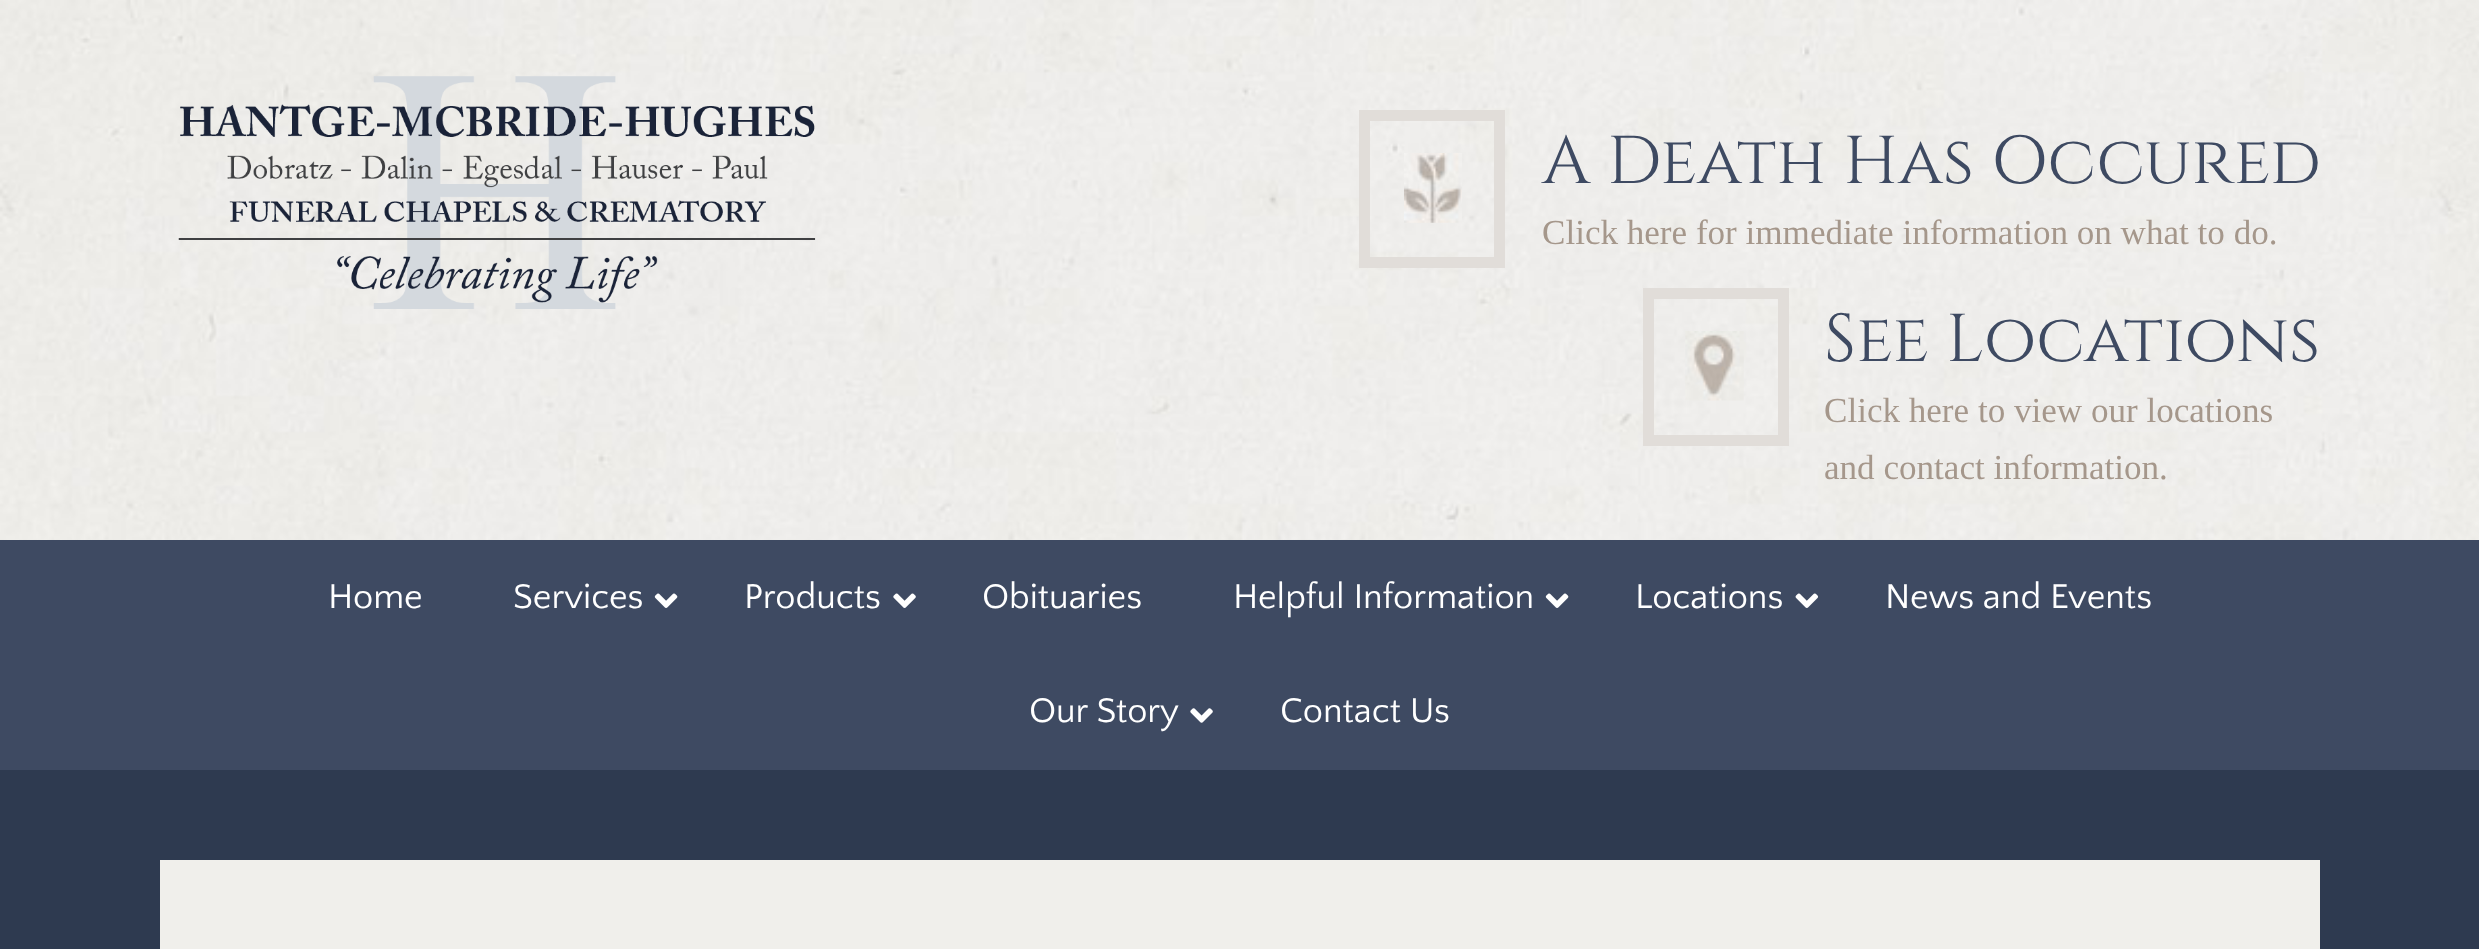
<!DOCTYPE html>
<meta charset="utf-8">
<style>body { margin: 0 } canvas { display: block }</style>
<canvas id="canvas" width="2479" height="949"></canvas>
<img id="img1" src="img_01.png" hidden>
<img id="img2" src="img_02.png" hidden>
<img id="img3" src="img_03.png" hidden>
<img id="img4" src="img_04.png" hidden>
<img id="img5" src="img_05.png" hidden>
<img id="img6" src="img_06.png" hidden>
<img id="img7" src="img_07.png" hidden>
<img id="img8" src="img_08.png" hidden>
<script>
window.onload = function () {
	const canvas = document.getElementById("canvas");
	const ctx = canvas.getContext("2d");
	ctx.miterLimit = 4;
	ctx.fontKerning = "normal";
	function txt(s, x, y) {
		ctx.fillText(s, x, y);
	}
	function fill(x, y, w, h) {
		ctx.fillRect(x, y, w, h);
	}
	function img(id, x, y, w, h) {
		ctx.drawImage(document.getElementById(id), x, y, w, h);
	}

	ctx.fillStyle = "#2E3A50";
	fill(0, 0, 2479, 949);
	img("img1", 0, 0, 2479, 540);
	img("img2", 178, 76, 638, 233);
	ctx.strokeStyle = "#E1DDD9";
	ctx.lineWidth = 11;
	ctx.strokeRect(1364.5, 115.5, 135, 147);
	img("img3", 1404, 153, 58, 70);
	ctx.strokeRect(1648.5, 293.5, 135, 147);
	img("img4", 1685, 331, 59, 70);
	ctx.fillStyle = "#3E4A62";
	fill(0, 540, 2479, 230);
	img("img5", 654, 593, 24, 15);
	img("img6", 893, 593, 23, 15);
	img("img5", 1545, 593, 24, 15);
	img("img7", 1795, 593, 24, 15);
	img("img8", 1190, 708, 23, 15);
	ctx.fillStyle = "#F0EFEB";
	fill(160, 860, 2160, 89);
	ctx.font = "67.5px Cinzel";
	ctx.fillStyle = "#3E4A62";
	txt("A Death Has Occured", 1542, 183);
	ctx.font = "35.1px Liberation Serif";
	ctx.fillStyle = "#A5978B";
	txt("Click here for immediate information on what to do.", 1542, 244);
	ctx.font = "67.5px Cinzel";
	ctx.fillStyle = "#3E4A62";
	txt("See Locations", 1824, 361);
	ctx.font = "35.1px Liberation Serif";
	ctx.fillStyle = "#A5978B";
	txt("Click here to view our locations", 1824, 422);
	txt("and contact information.", 1824, 479);
	ctx.font = "36px Quattrocento Sans";
	ctx.fillStyle = "#FFFFFF";
	txt("Home", 328, 608);
	txt("Services", 513, 608);
	txt("Products", 744, 608);
	txt("Obituaries", 982, 608);
	txt("Helpful Information", 1233, 608);
	txt("Locations", 1635, 608);
	txt("News and Events", 1885, 608);
	txt("Our Story", 1029, 722);
	txt("Contact Us", 1280, 722);
};
</script>
